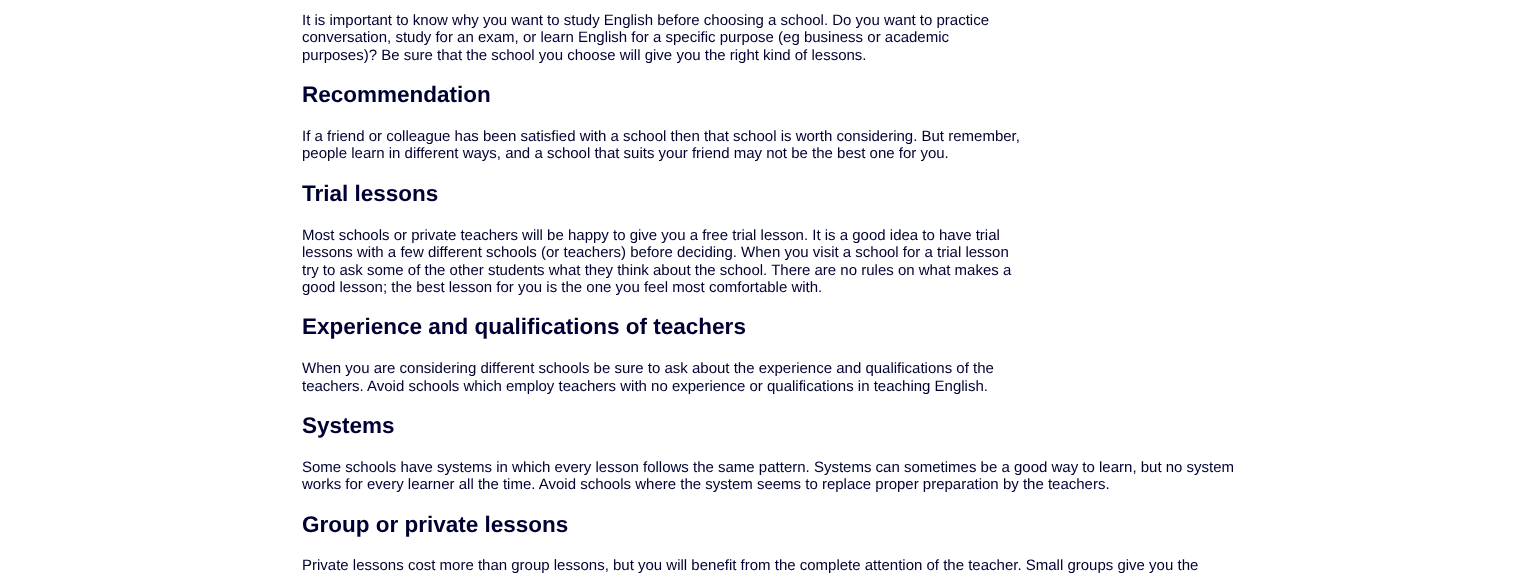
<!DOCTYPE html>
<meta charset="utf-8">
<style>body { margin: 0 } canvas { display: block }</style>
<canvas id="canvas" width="1536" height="574"></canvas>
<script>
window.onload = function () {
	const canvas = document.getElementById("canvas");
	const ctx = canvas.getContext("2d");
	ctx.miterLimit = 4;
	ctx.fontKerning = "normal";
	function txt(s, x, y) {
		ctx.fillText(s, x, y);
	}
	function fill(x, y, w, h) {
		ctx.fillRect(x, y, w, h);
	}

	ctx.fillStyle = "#FFFFFF";
	fill(0, 0, 1536, 574);
	ctx.font = "15px Liberation Sans";
	ctx.fillStyle = "#000033";
	txt("It is important to know why you want to study English before choosing a school. Do you want to practice", 302, 25);
	txt("conversation, study for an exam, or learn English for a specific purpose (eg business or academic", 302, 42);
	txt("purposes)? Be sure that the school you choose will give you the right kind of lessons.", 302, 60);
	ctx.font = "bold 22.5px Liberation Sans";
	txt("Recommendation", 302, 102);
	ctx.font = "15px Liberation Sans";
	txt("If a friend or colleague has been satisfied with a school then that school is worth considering. But remember,", 302, 141);
	txt("people learn in different ways, and a school that suits your friend may not be the best one for you.", 302, 158);
	ctx.font = "bold 22.5px Liberation Sans";
	txt("Trial lessons", 302, 201);
	ctx.font = "15px Liberation Sans";
	txt("Most schools or private teachers will be happy to give you a free trial lesson. It is a good idea to have trial", 302, 240);
	txt("lessons with a few different schools (or teachers) before deciding. When you visit a school for a trial lesson", 302, 257);
	txt("try to ask some of the other students what they think about the school. There are no rules on what makes a", 302, 275);
	txt("good lesson; the best lesson for you is the one you feel most comfortable with.", 302, 292);
	ctx.font = "bold 22.5px Liberation Sans";
	txt("Experience and qualifications of teachers", 302, 334);
	ctx.font = "15px Liberation Sans";
	txt("When you are considering different schools be sure to ask about the experience and qualifications of the", 302, 373);
	txt("teachers. Avoid schools which employ teachers with no experience or qualifications in teaching English.", 302, 391);
	ctx.font = "bold 22.5px Liberation Sans";
	txt("Systems", 302, 433);
	ctx.font = "15px Liberation Sans";
	txt("Some schools have systems in which every lesson follows the same pattern. Systems can sometimes be a good way to learn, but no system", 302, 472);
	txt("works for every learner all the time. Avoid schools where the system seems to replace proper preparation by the teachers.", 302, 489);
	ctx.font = "bold 22.5px Liberation Sans";
	txt("Group or private lessons", 302, 532);
	ctx.font = "15px Liberation Sans";
	txt("Private lessons cost more than group lessons, but you will benefit from the complete attention of the teacher. Small groups give you the", 302, 570);
};
</script>
